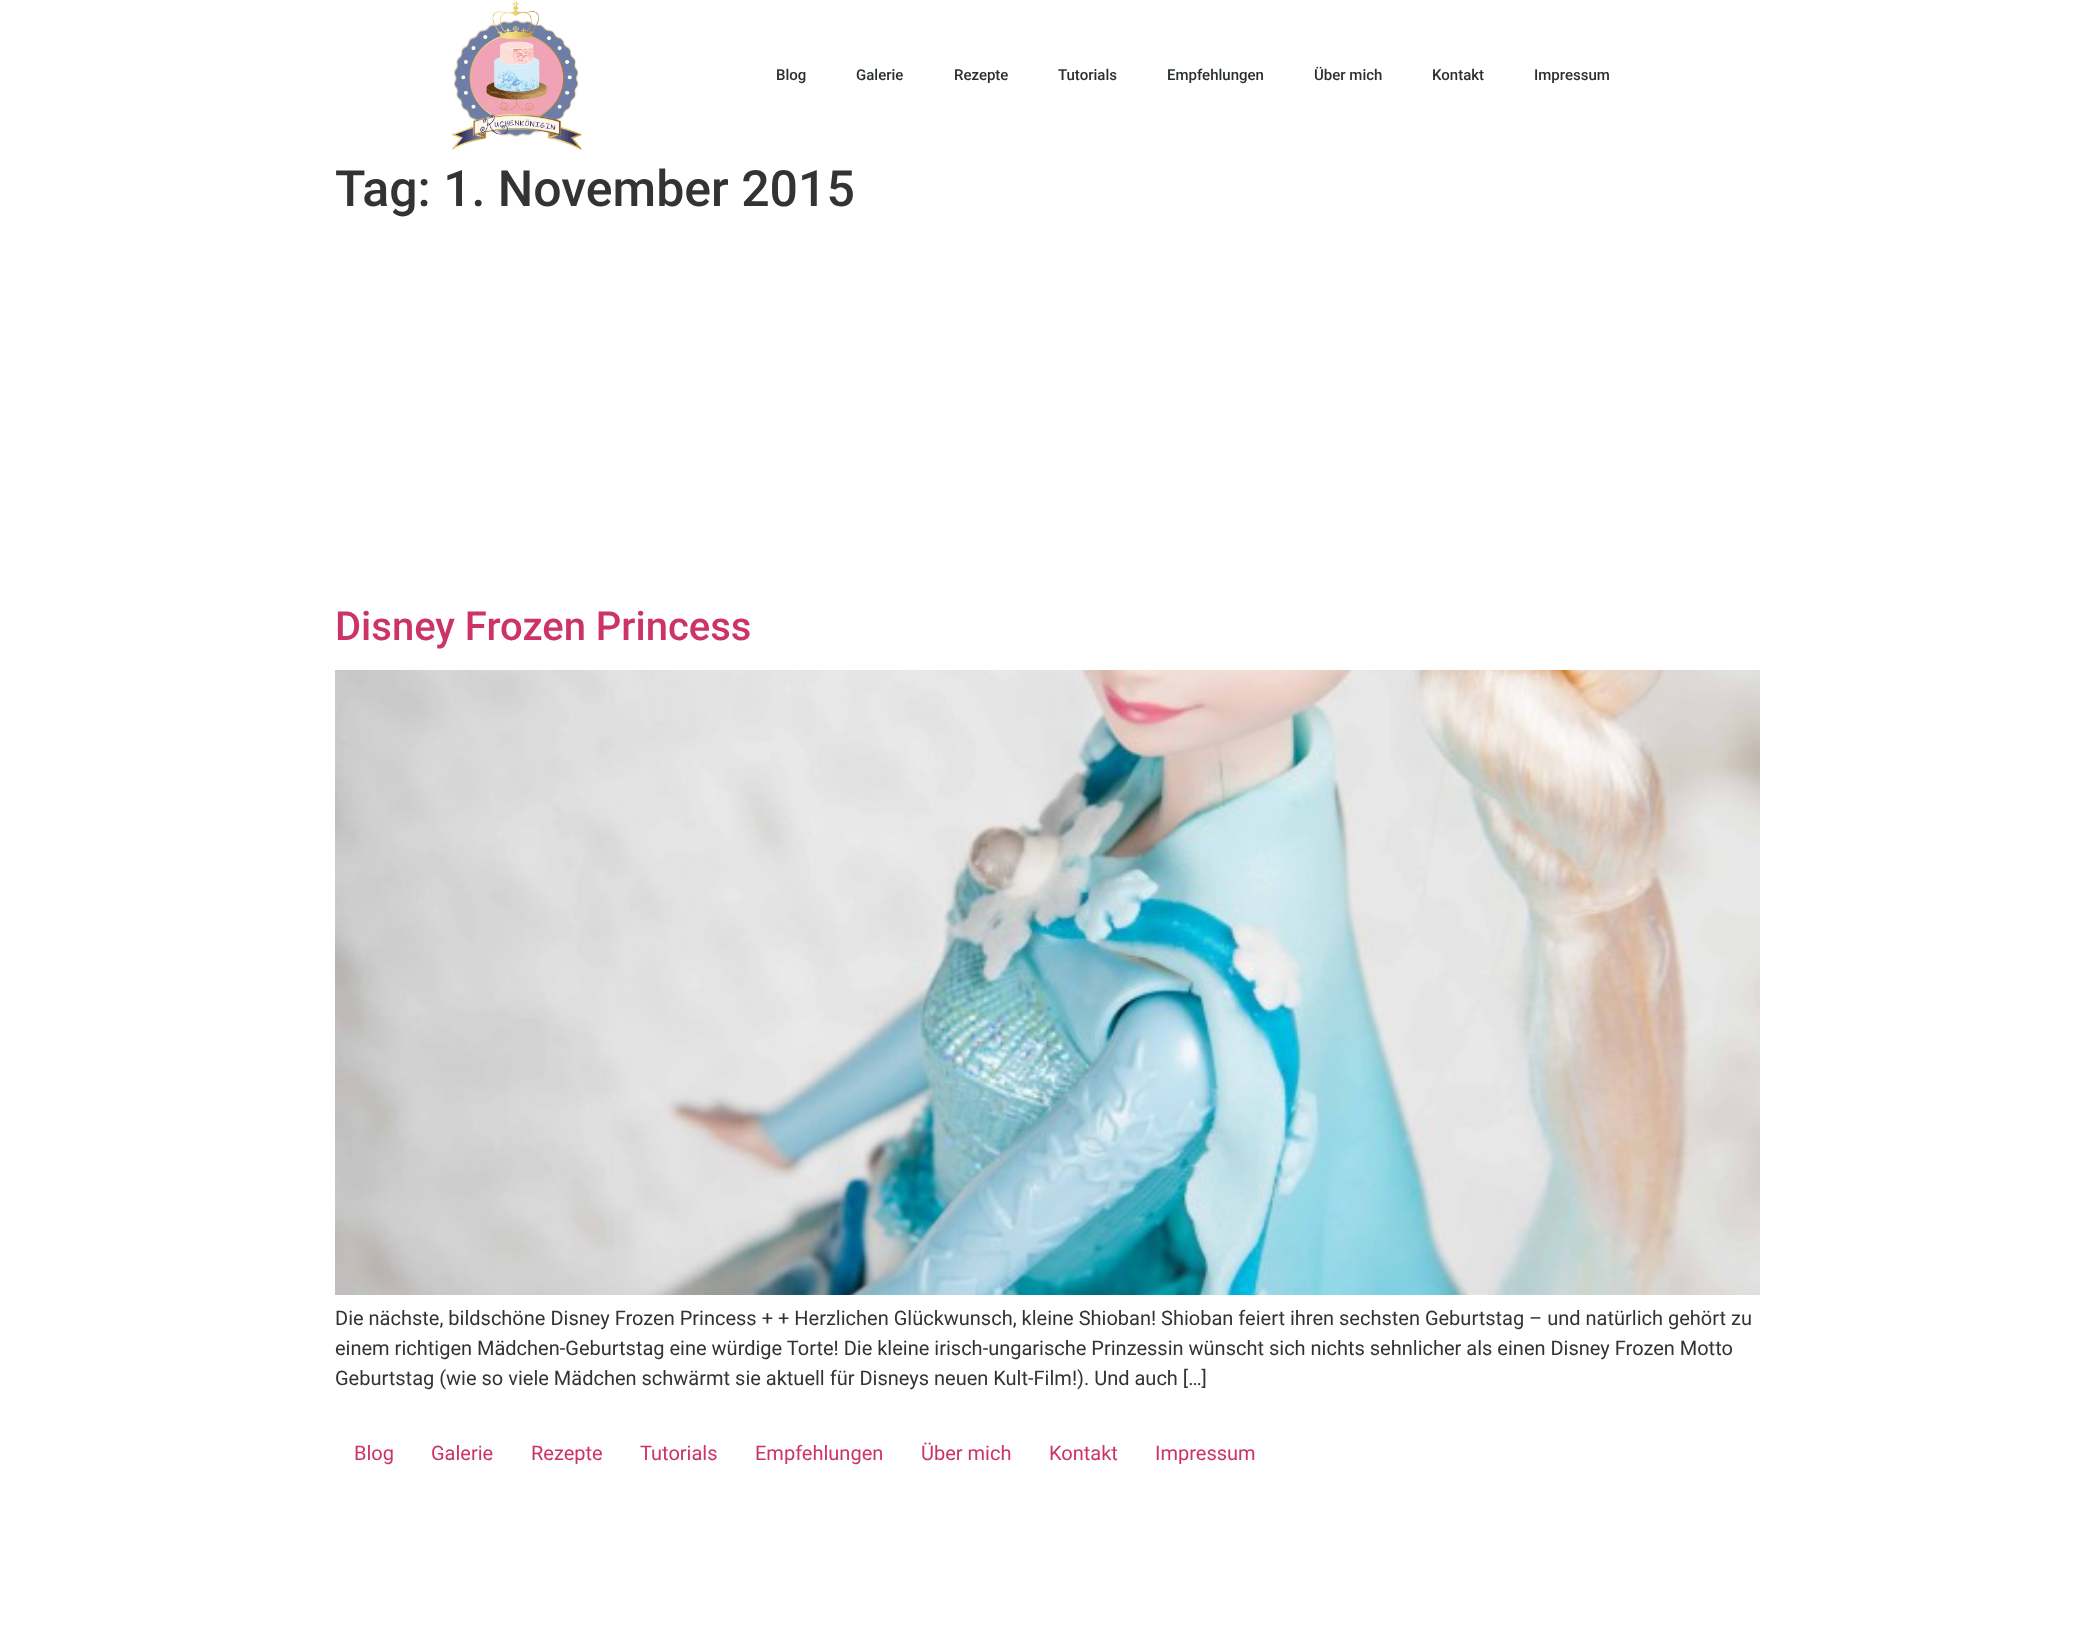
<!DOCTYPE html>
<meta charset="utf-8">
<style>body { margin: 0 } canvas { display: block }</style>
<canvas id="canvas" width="2094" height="1647"></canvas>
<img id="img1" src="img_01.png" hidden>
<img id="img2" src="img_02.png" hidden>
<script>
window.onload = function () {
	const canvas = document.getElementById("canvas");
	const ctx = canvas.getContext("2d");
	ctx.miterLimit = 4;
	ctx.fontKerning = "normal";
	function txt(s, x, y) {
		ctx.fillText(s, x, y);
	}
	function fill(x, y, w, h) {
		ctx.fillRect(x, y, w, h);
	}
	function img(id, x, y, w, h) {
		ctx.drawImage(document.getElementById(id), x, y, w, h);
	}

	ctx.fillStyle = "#FFFFFF";
	fill(0, 0, 2094, 1647);
	img("img1", 451, 1, 132, 149);
	img("img2", 335, 670, 1425, 625);
	ctx.font = "500 15px Roboto";
	ctx.fillStyle = "#2A302F";
	txt("Blog", 776, 80);
	txt("Galerie", 856, 80);
	txt("Rezepte", 954, 80);
	txt("Tutorials", 1058, 80);
	txt("Empfehlungen", 1167, 80);
	txt("Über mich", 1314, 80);
	txt("Kontakt", 1432, 80);
	txt("Impressum", 1534, 80);
	ctx.font = "500 50px Roboto";
	ctx.fillStyle = "#333333";
	txt("Tag: 1. November 2015", 335, 206);
	ctx.font = "500 40px Roboto";
	ctx.fillStyle = "#CC3366";
	txt("Disney Frozen Princess", 335, 640);
	ctx.font = "20px Roboto";
	ctx.fillStyle = "#333333";
	txt("Die nächste, bildschöne Disney Frozen Princess + + Herzlichen Glückwunsch, kleine Shioban! Shioban feiert ihren sechsten Geburtstag – und natürlich gehört zu", 335, 1325);
	txt("einem richtigen Mädchen-Geburtstag eine würdige Torte! Die kleine irisch-ungarische Prinzessin wünscht sich nichts sehnlicher als einen Disney Frozen Motto", 335, 1355);
	txt("Geburtstag (wie so viele Mädchen schwärmt sie aktuell für Disneys neuen Kult-Film!). Und auch […]", 335, 1385);
	ctx.fillStyle = "#CC3366";
	txt("Blog", 354, 1460);
	txt("Galerie", 431, 1460);
	txt("Rezepte", 531, 1460);
	txt("Tutorials", 640, 1460);
	txt("Empfehlungen", 755, 1460);
	txt("Über mich", 921, 1460);
	txt("Kontakt", 1049, 1460);
	txt("Impressum", 1155, 1460);
};
</script>
